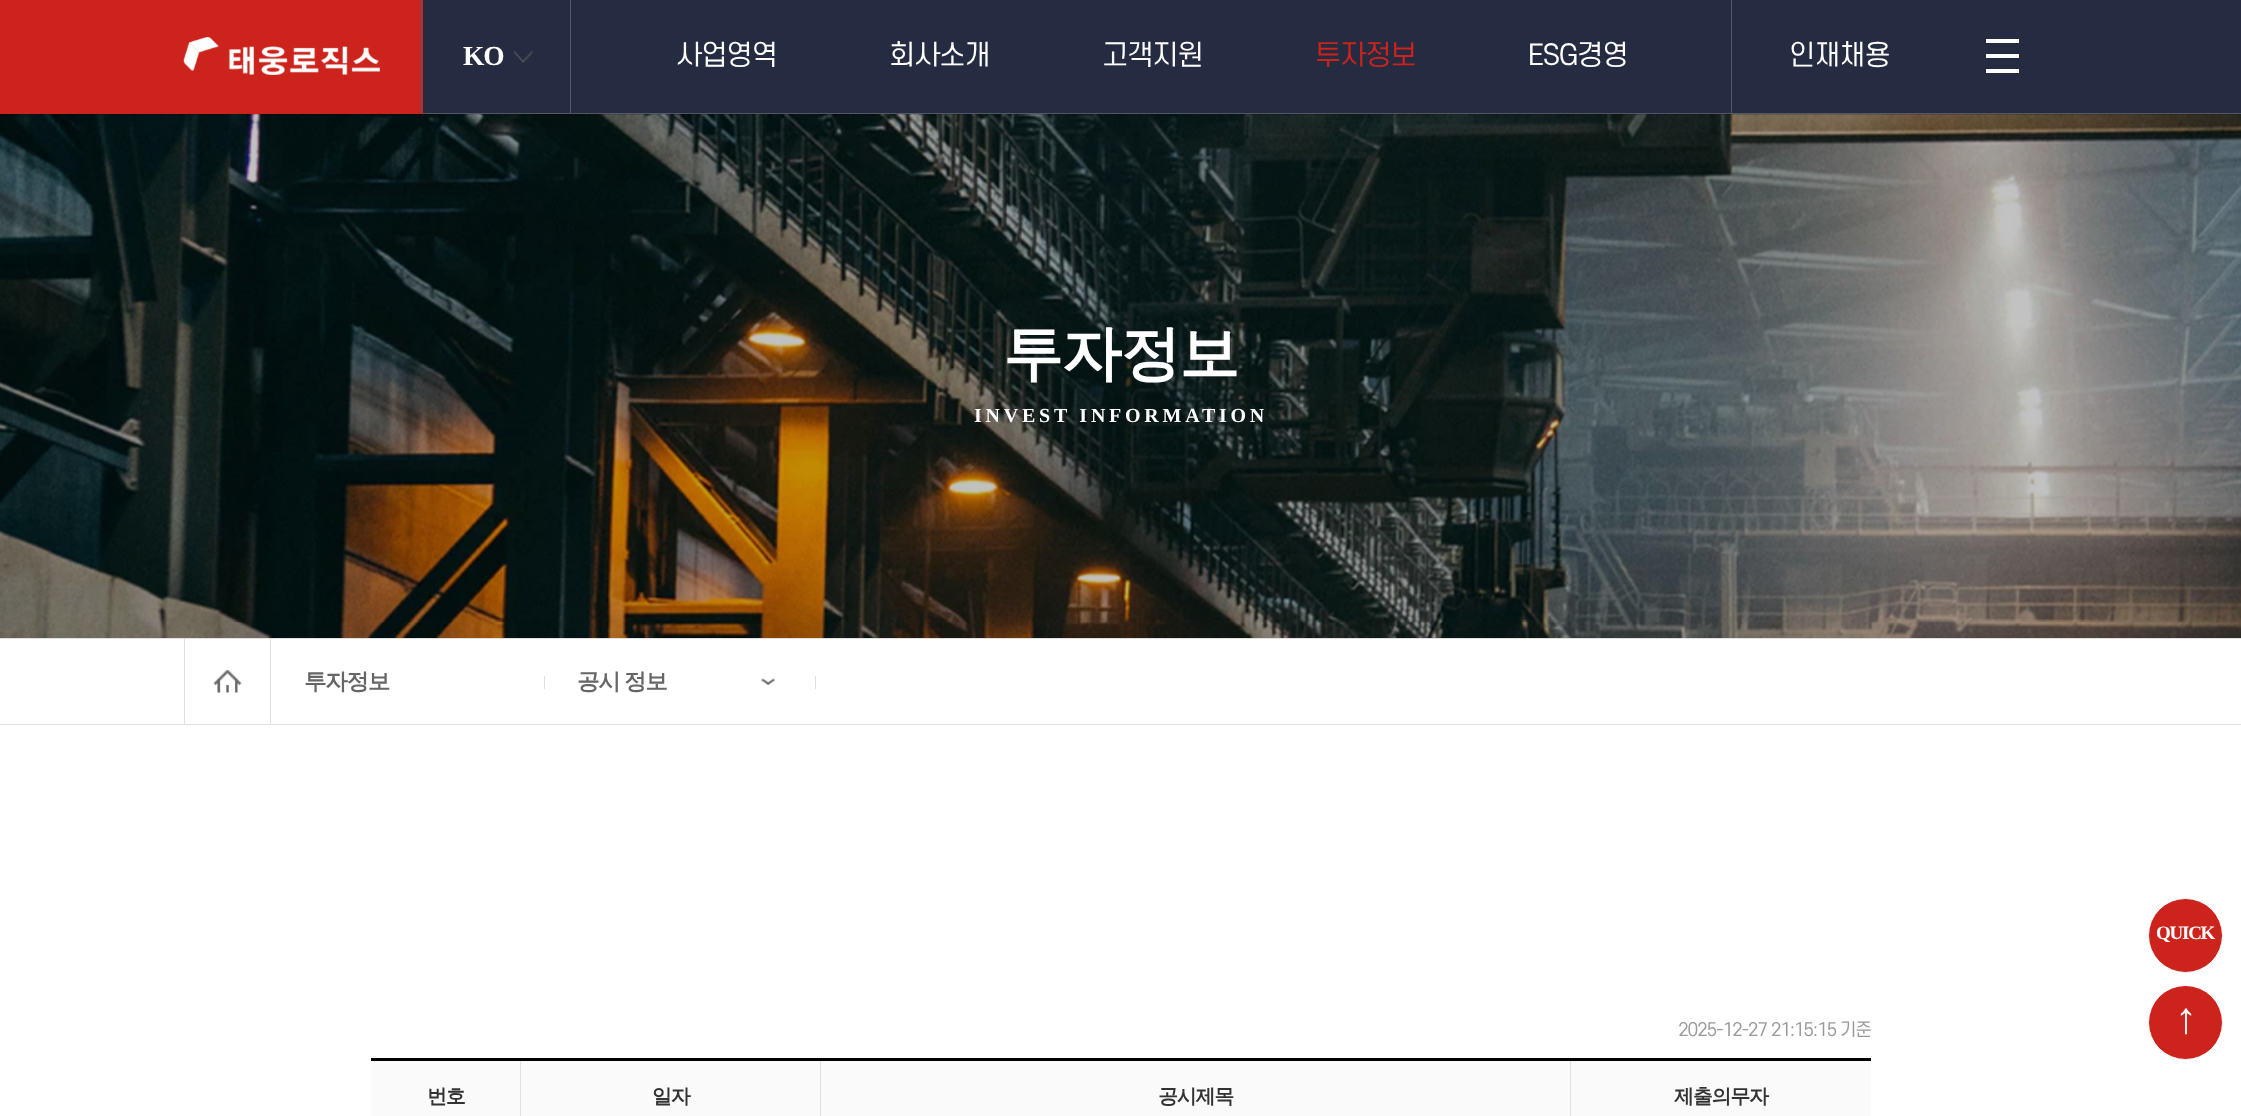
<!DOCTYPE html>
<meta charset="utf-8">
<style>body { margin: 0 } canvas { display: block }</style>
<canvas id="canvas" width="2241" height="1116"></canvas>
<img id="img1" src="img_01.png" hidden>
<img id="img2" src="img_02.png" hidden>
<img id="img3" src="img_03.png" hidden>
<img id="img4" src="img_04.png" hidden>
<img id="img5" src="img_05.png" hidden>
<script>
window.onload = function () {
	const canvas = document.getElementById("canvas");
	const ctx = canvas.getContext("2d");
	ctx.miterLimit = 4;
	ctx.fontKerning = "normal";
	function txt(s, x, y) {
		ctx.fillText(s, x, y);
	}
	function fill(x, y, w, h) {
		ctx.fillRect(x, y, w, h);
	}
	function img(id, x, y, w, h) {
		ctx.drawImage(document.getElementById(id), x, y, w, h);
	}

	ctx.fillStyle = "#FFFFFF";
	fill(0, 0, 2241, 1116);
	ctx.fillStyle = "#252B41";
	fill(423, 0, 1818, 113);
	ctx.fillStyle = "#535869";
	fill(423, 113, 1818, 1);
	ctx.fillStyle = "#CC231C";
	fill(0, 0, 423, 114);
	img("img1", 183, 37, 197, 38);
	ctx.fillStyle = "#535869";
	fill(570, 0, 1, 113);
	fill(421, 0, 1, 113);
	img("img2", 513, 51, 20, 12);
	fill(1731, 0, 1, 113);
	ctx.fillStyle = "#FFFFFF";
	fill(1986, 39, 33, 4);
	fill(1986, 54, 33, 4);
	fill(1986, 69, 33, 4);
	img("img3", 0, 114, 2241, 524);
	ctx.fillStyle = "#E0E0E0";
	fill(0, 638, 2241, 1);
	fill(0, 724, 2241, 1);
	img("img4", 213, 670, 29, 23);
	fill(270, 639, 1, 85);
	fill(184, 639, 1, 85);
	fill(544, 676, 1, 13);
	img("img5", 761, 678, 14, 7);
	fill(815, 676, 1, 13);
	fill(520, 1059, 1, 57);
	fill(820, 1059, 1, 57);
	fill(1570, 1059, 1, 57);
	ctx.fillStyle = "#000000";
	fill(371, 1058, 1500, 3);
	ctx.fillStyle = "#FAFAFA";
	fill(371, 1061, 149, 55);
	fill(521, 1061, 299, 55);
	fill(821, 1061, 749, 55);
	fill(1571, 1061, 300, 55);
	ctx.fillStyle = "#CC231C";
	ctx.beginPath();
	ctx.arc(2185.5, 935.5, 37, 0, Math.PI * 2);
	ctx.fill();
	ctx.strokeStyle = "#FFFFFF";
	ctx.stroke();
	ctx.beginPath();
	ctx.arc(2185.5, 1022.5, 37, 0, Math.PI * 2);
	ctx.fill();
	ctx.stroke();
	ctx.letterSpacing = "-1.25px";
	ctx.font = "bold 27.5px Liberation Serif";
	ctx.fillStyle = "#FFFFFF";
	txt("KO", 463, 65);
	ctx.font = "27.5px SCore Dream";
	txt("사업영역", 676, 65);
	txt("회사소개", 889, 65);
	txt("고객지원", 1102, 65);
	ctx.fillStyle = "#CC231C";
	txt("투자정보", 1315, 65);
	ctx.fillStyle = "#FFFFFF";
	txt("ESG경영", 1528, 65);
	txt("인재채용", 1789, 65);
	ctx.font = "bold 60px WenQuanYi Zen Hei";
	txt("투자정보", 1003, 374);
	ctx.letterSpacing = "3.75px";
	ctx.font = "bold 20px Liberation Serif";
	txt("INVEST INFORMATION", 974, 422);
	ctx.letterSpacing = "-1.25px";
	ctx.font = "bold 22.5px WenQuanYi Zen Hei";
	ctx.fillStyle = "#666666";
	txt("투자정보", 304, 689);
	ctx.wordSpacing = "-1px";
	txt("공시 정보", 577, 689);
	ctx.wordSpacing = "0px";
	ctx.font = "17.5px SCore Dream";
	ctx.fillStyle = "#999999";
	txt("2025-12-27 21:15:15 기준", 1678, 1036);
	ctx.font = "bold 20px WenQuanYi Zen Hei";
	ctx.fillStyle = "#333333";
	txt("번호", 427, 1103);
	txt("일자", 652, 1103);
	txt("공시제목", 1158, 1103);
	txt("제출의무자", 1674, 1103);
	ctx.font = "bold 19px Liberation Serif";
	ctx.fillStyle = "#FFFFFF";
	txt("QUICK", 2156, 939);
	ctx.font = "bold 44px Liberation Serif";
	txt("↑", 2175, 1033);
};
</script>
